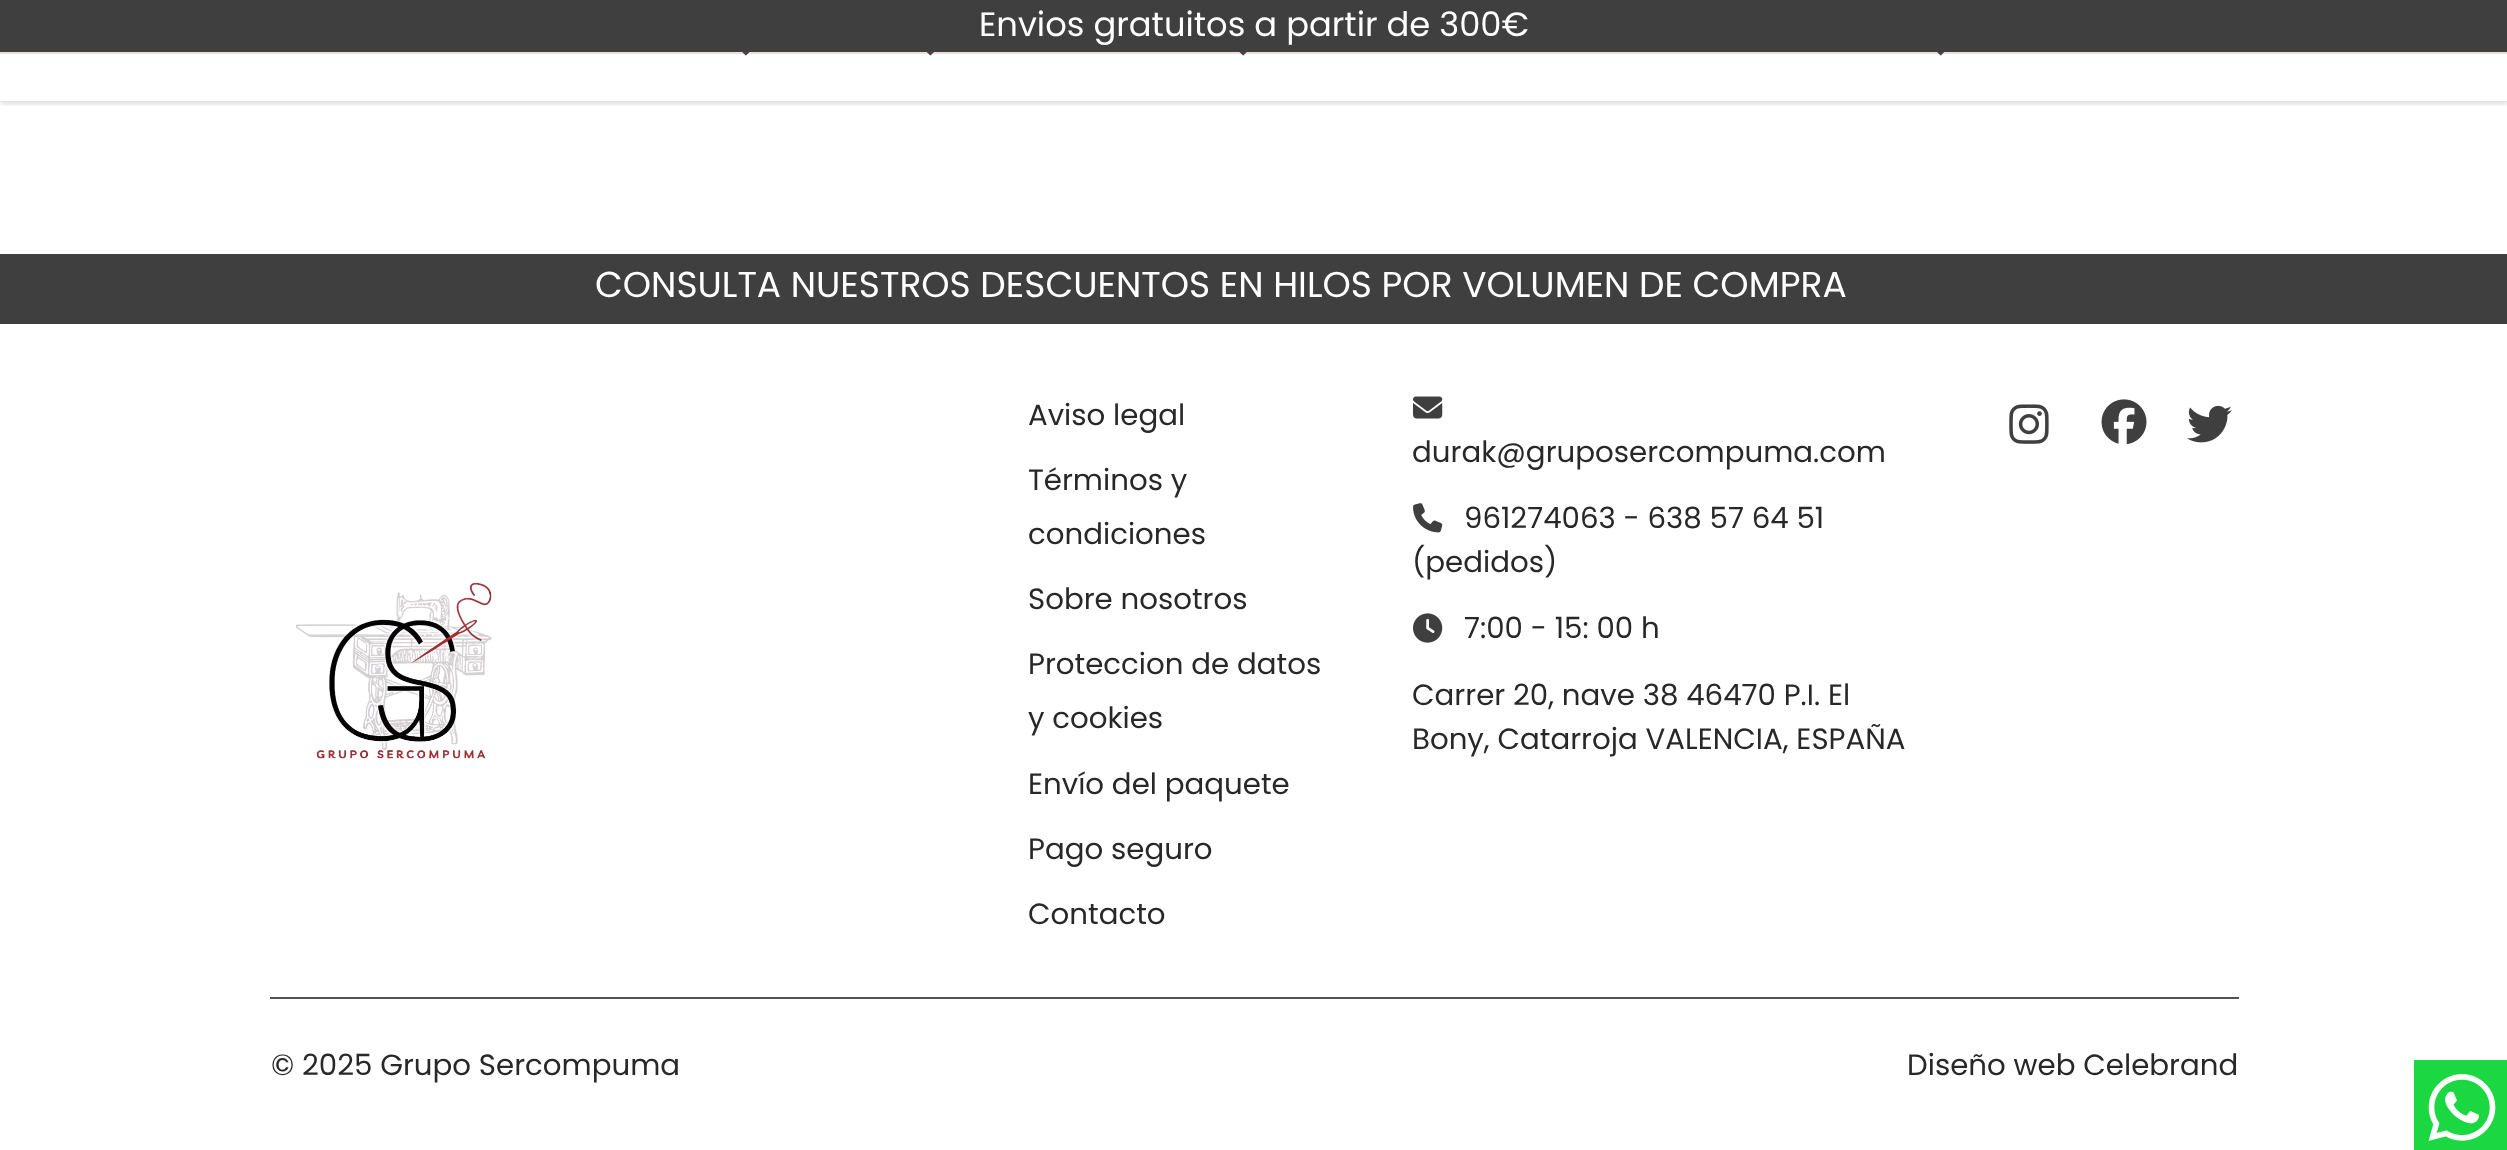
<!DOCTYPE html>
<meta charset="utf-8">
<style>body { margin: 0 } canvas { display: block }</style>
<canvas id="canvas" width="2507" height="1150"></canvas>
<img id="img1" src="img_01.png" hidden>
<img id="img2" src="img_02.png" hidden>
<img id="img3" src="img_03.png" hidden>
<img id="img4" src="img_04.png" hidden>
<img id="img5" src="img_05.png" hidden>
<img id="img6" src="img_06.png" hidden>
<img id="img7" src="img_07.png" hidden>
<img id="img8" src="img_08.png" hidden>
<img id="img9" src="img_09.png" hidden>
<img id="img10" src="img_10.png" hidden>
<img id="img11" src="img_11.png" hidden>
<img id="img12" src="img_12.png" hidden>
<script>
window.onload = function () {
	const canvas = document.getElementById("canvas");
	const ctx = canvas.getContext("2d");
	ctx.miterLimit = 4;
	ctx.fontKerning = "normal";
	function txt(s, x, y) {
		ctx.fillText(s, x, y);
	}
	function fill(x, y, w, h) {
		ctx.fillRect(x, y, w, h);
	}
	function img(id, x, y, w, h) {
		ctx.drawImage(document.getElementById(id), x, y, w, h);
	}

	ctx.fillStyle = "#9C262C";
	fill(0, 0, 2507, 1150);
	ctx.fillStyle = "#FFFFFF";
	fill(0, 54, 2507, 200);
	ctx.save();
	ctx.beginPath();
	ctx.rect(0, 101, 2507, 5);
	ctx.clip();
	ctx.fillStyle = "rgba(38, 38, 38, 0.15)";
	ctx.filter = "blur(2px)";
	ctx.beginPath();
	ctx.rect(0, 2, 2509, 102);
	ctx.fill();
	ctx.filter = "none";
	ctx.restore();
	ctx.fillStyle = "#3F3F3F";
	fill(0, 0, 2507, 52);
	ctx.fillStyle = "rgba(255, 255, 255, 0.85)";
	fill(0, 52, 2507, 2);
	img("img1", 742, 52, 8, 4);
	img("img2", 926, 52, 8, 4);
	img("img3", 1239, 52, 8, 4);
	img("img4", 1937, 52, 8, 4);
	ctx.fillStyle = "#3F3F3F";
	fill(0, 254, 2507, 70);
	ctx.fillStyle = "#FFFFFF";
	fill(0, 324, 2507, 826);
	img("img5", 295, 582, 197, 177);
	img("img6", 1413, 396, 30, 23);
	img("img7", 1413, 503, 30, 30);
	img("img8", 1413, 613, 30, 30);
	img("img9", 2009, 404, 40, 40);
	img("img10", 2101, 399, 46, 46);
	img("img11", 2187, 405, 45, 38);
	ctx.fillStyle = "#525252";
	fill(270, 997, 1969, 2);
	img("img12", 2414, 1060, 93, 90);
	ctx.font = "33.75px Poppins";
	ctx.fillStyle = "#FFFFFF";
	txt("Envios gratuitos a partir de 300€", 979, 36);
	ctx.font = "36px Poppins";
	txt("CONSULTA NUESTROS DESCUENTOS EN HILOS POR VOLUMEN DE COMPRA", 595, 297);
	ctx.font = "29.25px Poppins";
	ctx.fillStyle = "#282828";
	txt("Aviso legal", 1028, 425);
	txt("Términos y", 1028, 490);
	txt("condiciones", 1028, 544);
	txt("Sobre nosotros", 1028, 609);
	txt("Proteccion de datos", 1028, 674);
	txt("y cookies", 1028, 728);
	txt("Envío del paquete", 1028, 794);
	txt("Pago seguro", 1028, 859);
	txt("Contacto", 1028, 924);
	txt("durak@gruposercompuma.com", 1412, 462);
	txt("961274063 - 638 57 64 51", 1464, 528);
	txt("(pedidos)", 1412, 572);
	txt("7:00 - 15: 00 h", 1464, 638);
	txt("Carrer 20, nave 38 46470 P.I. El", 1412, 705);
	txt("Bony, Catarroja VALENCIA, ESPAÑA", 1412, 749);
	txt("© 2025 Grupo Sercompuma", 271, 1075);
	txt("Diseño web Celebrand", 1907, 1075);
};
</script>
